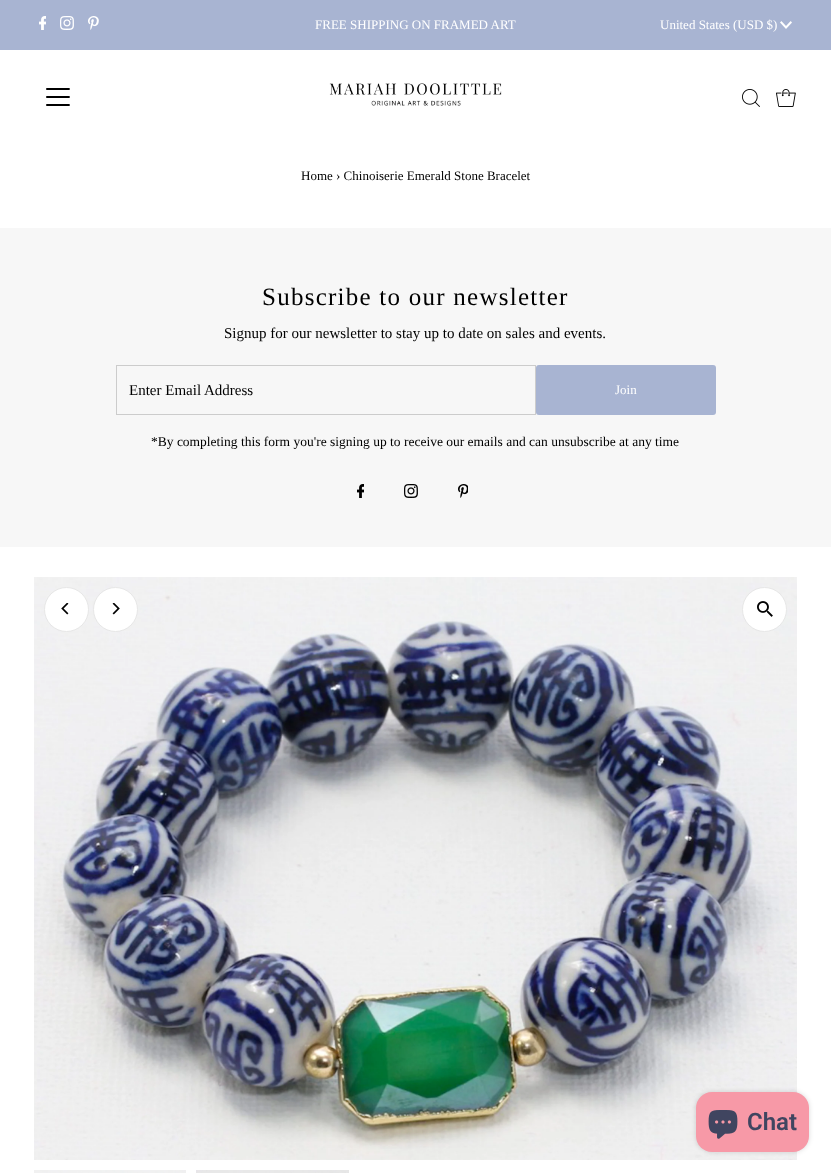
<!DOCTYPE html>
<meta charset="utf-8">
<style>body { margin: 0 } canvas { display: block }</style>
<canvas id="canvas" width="831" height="1173"></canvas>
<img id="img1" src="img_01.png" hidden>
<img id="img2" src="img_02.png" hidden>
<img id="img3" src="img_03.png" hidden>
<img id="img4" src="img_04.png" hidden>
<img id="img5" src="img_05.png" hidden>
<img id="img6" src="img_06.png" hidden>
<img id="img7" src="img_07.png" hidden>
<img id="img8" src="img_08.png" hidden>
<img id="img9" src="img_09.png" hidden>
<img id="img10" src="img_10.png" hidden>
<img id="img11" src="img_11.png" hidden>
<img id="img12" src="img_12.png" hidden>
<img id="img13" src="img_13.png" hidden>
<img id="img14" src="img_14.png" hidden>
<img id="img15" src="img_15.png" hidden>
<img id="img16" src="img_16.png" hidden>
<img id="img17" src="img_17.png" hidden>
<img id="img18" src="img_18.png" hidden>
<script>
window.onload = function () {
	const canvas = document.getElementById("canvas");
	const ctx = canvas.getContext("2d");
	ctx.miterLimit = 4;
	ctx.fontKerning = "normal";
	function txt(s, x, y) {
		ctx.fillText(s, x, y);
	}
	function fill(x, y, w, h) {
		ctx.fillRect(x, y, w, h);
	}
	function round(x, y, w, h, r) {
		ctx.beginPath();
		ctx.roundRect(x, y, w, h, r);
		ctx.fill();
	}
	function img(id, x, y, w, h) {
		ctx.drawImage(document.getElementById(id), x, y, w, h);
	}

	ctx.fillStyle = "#FFFFFF";
	fill(0, 0, 831, 1173);
	ctx.fillStyle = "#A8B4D2";
	fill(0, 0, 831, 50);
	img("img1", 39, 16, 7, 14);
	img("img2", 60, 16, 14, 14);
	img("img3", 88, 16, 11, 14);
	img("img4", 780, 21, 12, 8);
	img("img5", 46, 88, 24, 18);
	img("img6", 329, 83, 173, 23);
	img("img7", 742, 89, 18, 18);
	img("img8", 776, 89, 20, 18);
	ctx.fillStyle = "#F7F7F7";
	fill(0, 228, 831, 319);
	ctx.strokeStyle = "#CCCCCC";
	ctx.strokeRect(116.5, 365.5, 419, 49);
	ctx.fillStyle = "#A8B4D2";
	round(536, 365, 180, 50, 3);
	img("img9", 357, 484, 7, 14);
	img("img10", 404, 484, 14, 14);
	img("img11", 458, 484, 10, 14);
	img("img12", 34, 577, 763, 583);
	ctx.fillStyle = "#FFFFFF";
	ctx.beginPath();
	ctx.arc(764.5, 609.5, 22, 0, Math.PI * 2);
	ctx.fill();
	ctx.strokeStyle = "#E7E7E7";
	ctx.stroke();
	img("img13", 757, 601, 16, 16);
	ctx.beginPath();
	ctx.arc(66.5, 609.5, 22, 0, Math.PI * 2);
	ctx.fill();
	ctx.stroke();
	img("img14", 61, 603, 8, 12);
	ctx.beginPath();
	ctx.arc(115.5, 609.5, 22, 0, Math.PI * 2);
	ctx.fill();
	ctx.stroke();
	img("img15", 112, 603, 8, 12);
	img("img16", 34, 1170, 152, 3);
	img("img17", 196, 1170, 153, 3);
	ctx.fillStyle = "rgba(0, 0, 0, 0.15)";
	ctx.filter = "blur(2.5px)";
	ctx.beginPath();
	ctx.roundRect(696, 1092, 113, 60, 16);
	ctx.fill();
	ctx.filter = "none";
	ctx.fillStyle = "#F799A7";
	round(696, 1092, 113, 60, 16);
	img("img18", 708, 1110, 30, 29);
	ctx.font = "13px Liberation Serif";
	ctx.fillStyle = "#FFFFFF";
	txt("FREE SHIPPING ON FRAMED ART", 315, 29);
	txt("United States (USD $)", 660, 29);
	ctx.fillStyle = "#000000";
	txt("Home › Chinoiserie Emerald Stone Bracelet", 301, 180);
	ctx.letterSpacing = "1.25px";
	ctx.font = "25px Liberation Serif";
	txt("Subscribe to our newsletter", 262, 305);
	ctx.letterSpacing = "0px";
	ctx.font = "15px Liberation Serif";
	txt("Signup for our newsletter to stay up to date on sales and events.", 224, 338);
	txt("Enter Email Address", 129, 395);
	ctx.font = "13px Liberation Serif";
	ctx.fillStyle = "#FFFFFF";
	txt("Join", 615, 394);
	ctx.font = "13.5px Liberation Serif";
	ctx.fillStyle = "#000000";
	txt("*By completing this form you're signing up to receive our emails and can unsubscribe at any time", 151, 446);
	ctx.font = "600 24px Roboto";
	ctx.fillStyle = "#404560";
	txt("Chat", 747, 1130);
};
</script>
